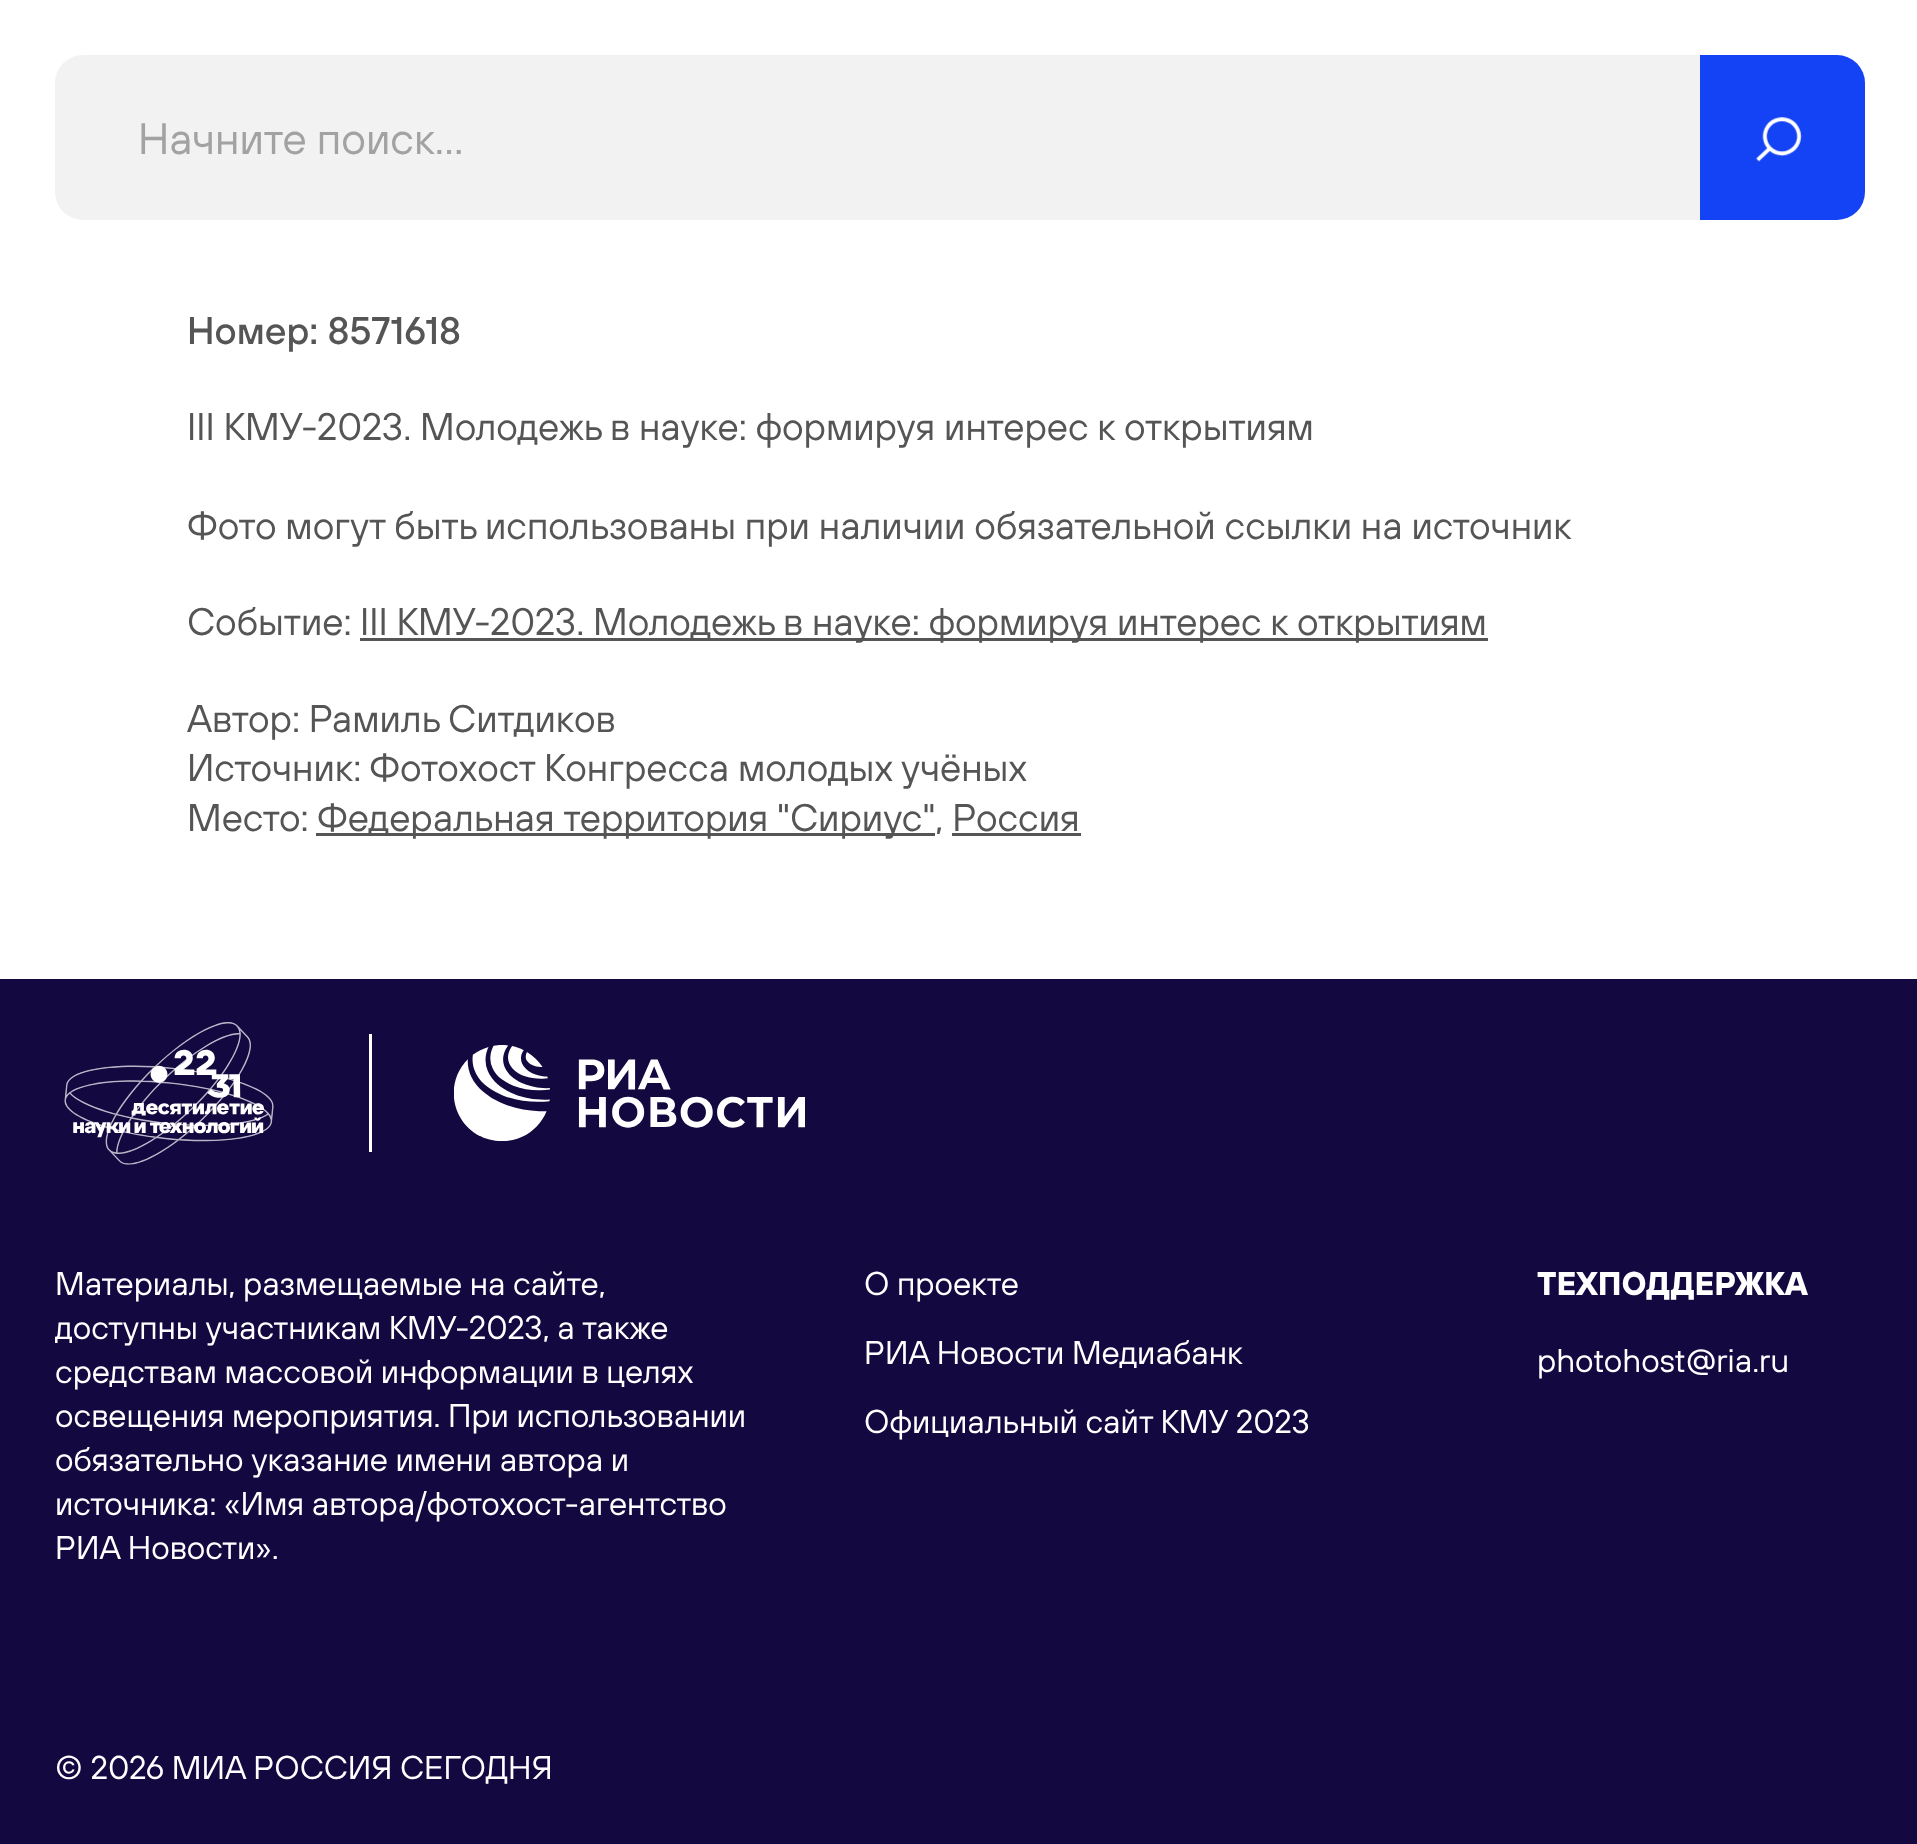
<!DOCTYPE html>
<meta charset="utf-8">
<style>body { margin: 0 } canvas { display: block }</style>
<canvas id="canvas" width="1917" height="1844"></canvas>
<img id="img1" src="img_01.png" hidden>
<img id="img2" src="img_02.png" hidden>
<img id="img3" src="img_03.png" hidden>
<script>
window.onload = function () {
	const canvas = document.getElementById("canvas");
	const ctx = canvas.getContext("2d");
	ctx.miterLimit = 4;
	ctx.fontKerning = "normal";
	function txt(s, x, y) {
		ctx.fillText(s, x, y);
	}
	function fill(x, y, w, h) {
		ctx.fillRect(x, y, w, h);
	}
	function img(id, x, y, w, h) {
		ctx.drawImage(document.getElementById(id), x, y, w, h);
	}

	ctx.fillStyle = "#FFFFFF";
	fill(0, 0, 1917, 1844);
	ctx.fillStyle = "#F2F2F2";
	ctx.beginPath();
	ctx.roundRect(55, 55, 1645, 165, [28, 0, 0, 28]);
	ctx.fill();
	ctx.fillStyle = "#1442F5";
	ctx.beginPath();
	ctx.roundRect(1700, 55, 165, 165, [0, 28, 28, 0]);
	ctx.fill();
	img("img1", 1755, 117, 47, 45);
	ctx.fillStyle = "#555555";
	fill(360, 638, 1128, 3);
	fill(316, 833, 619, 3);
	fill(952, 833, 129, 3);
	ctx.fillStyle = "#140841";
	fill(0, 979, 1917, 865);
	img("img2", 64, 1022, 210, 143);
	ctx.fillStyle = "#FFFFFF";
	fill(369, 1034, 3, 118);
	img("img3", 454, 1045, 351, 96);
	ctx.font = "44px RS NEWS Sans";
	ctx.fillStyle = "#A3A2A2";
	txt("Начните поиск...", 138, 154);
	ctx.font = "500 38.5px RS NEWS Sans";
	ctx.fillStyle = "#555555";
	txt("Номер: 8571618", 187, 344);
	ctx.font = "38.5px RS NEWS Sans";
	txt("III КМУ-2023. Молодежь в науке: формируя интерес к открытиям", 187, 440);
	txt("Фото могут быть использованы при наличии обязательной ссылки на источник", 187, 539);
	txt("Cобытие:", 187, 635);
	txt("III КМУ-2023. Молодежь в науке: формируя интерес к открытиям", 360, 635);
	txt("Автор: Рамиль Ситдиков", 187, 732);
	txt("Источник: Фотохост Конгресса молодых учёных", 187, 781);
	txt("Место:", 187, 831);
	txt("Федеральная территория \"Сириус\", Россия", 317, 831);
	ctx.font = "33px RS NEWS Sans";
	ctx.fillStyle = "#FFFFFF";
	txt("Материалы, размещаемые на сайте,", 55, 1295);
	txt("доступны участникам КМУ-2023, а также", 55, 1339);
	txt("средствам массовой информации в целях", 55, 1383);
	txt("освещения мероприятия. При использовании", 55, 1427);
	txt("обязательно указание имени автора и", 55, 1471);
	txt("источника: «Имя автора/фотохост-агентство", 55, 1515);
	txt("РИА Новости».", 55, 1559);
	txt("О проекте", 864, 1295);
	txt("РИА Новости Медиабанк", 864, 1364);
	txt("Официальный сайт КМУ 2023", 864, 1433);
	ctx.font = "bold 33px RS NEWS Sans";
	txt("ТЕХПОДДЕРЖКА", 1537, 1295);
	ctx.font = "33px RS NEWS Sans";
	txt("photohost@ria.ru", 1537, 1372);
	txt("© 2026 МИА РОССИЯ СЕГОДНЯ", 55, 1779);
};
</script>
